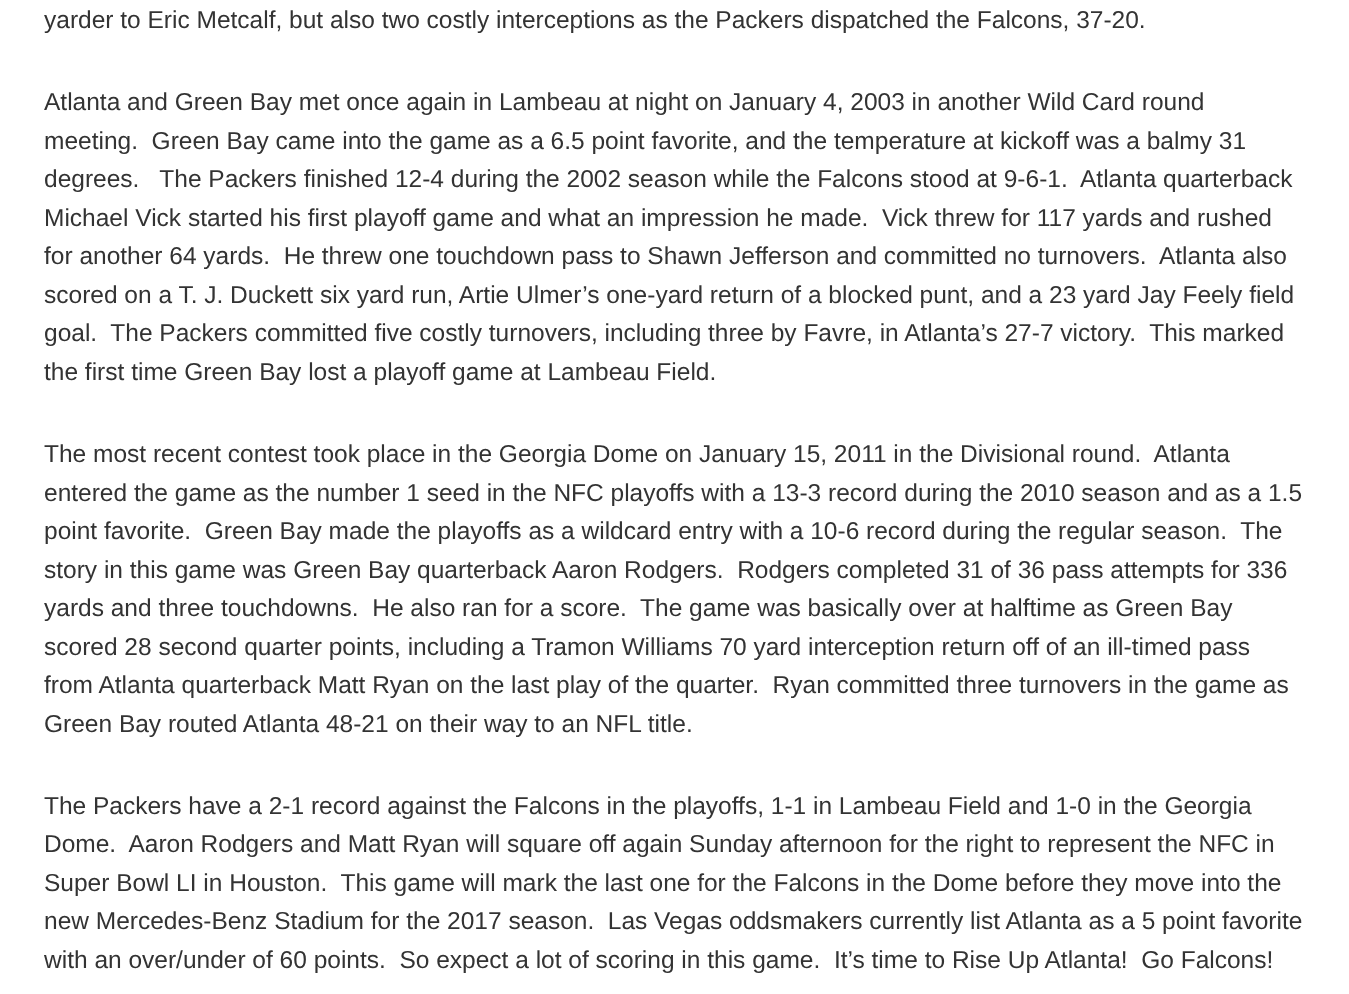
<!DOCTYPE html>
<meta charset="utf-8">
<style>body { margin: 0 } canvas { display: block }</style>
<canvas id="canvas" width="1349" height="994"></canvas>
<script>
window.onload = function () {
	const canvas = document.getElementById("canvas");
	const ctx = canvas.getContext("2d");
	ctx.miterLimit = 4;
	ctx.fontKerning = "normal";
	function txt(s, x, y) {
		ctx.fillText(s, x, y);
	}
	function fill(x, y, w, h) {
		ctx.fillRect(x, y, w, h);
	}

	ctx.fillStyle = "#FFFFFF";
	fill(0, 0, 1349, 994);
	ctx.font = "24.5px Liberation Sans";
	ctx.fillStyle = "#333333";
	txt("yarder to Eric Metcalf, but also two costly interceptions as the Packers dispatched the Falcons, 37-20.", 44, 28);
	txt("Atlanta and Green Bay met once again in Lambeau at night on January 4, 2003 in another Wild Card round", 44, 110);
	txt("meeting.  Green Bay came into the game as a 6.5 point favorite, and the temperature at kickoff was a balmy 31", 44, 149);
	txt("degrees.   The Packers finished 12-4 during the 2002 season while the Falcons stood at 9-6-1.  Atlanta quarterback", 44, 187);
	txt("Michael Vick started his first playoff game and what an impression he made.  Vick threw for 117 yards and rushed", 44, 226);
	txt("for another 64 yards.  He threw one touchdown pass to Shawn Jefferson and committed no turnovers.  Atlanta also", 44, 264);
	txt("scored on a T. J. Duckett six yard run, Artie Ulmer’s one-yard return of a blocked punt, and a 23 yard Jay Feely field", 44, 303);
	txt("goal.  The Packers committed five costly turnovers, including three by Favre, in Atlanta’s 27-7 victory.  This marked", 44, 341);
	txt("the first time Green Bay lost a playoff game at Lambeau Field.", 44, 380);
	txt("The most recent contest took place in the Georgia Dome on January 15, 2011 in the Divisional round.  Atlanta", 44, 462);
	txt("entered the game as the number 1 seed in the NFC playoffs with a 13-3 record during the 2010 season and as a 1.5", 44, 501);
	txt("point favorite.  Green Bay made the playoffs as a wildcard entry with a 10-6 record during the regular season.  The", 44, 539);
	txt("story in this game was Green Bay quarterback Aaron Rodgers.  Rodgers completed 31 of 36 pass attempts for 336", 44, 578);
	txt("yards and three touchdowns.  He also ran for a score.  The game was basically over at halftime as Green Bay", 44, 616);
	txt("scored 28 second quarter points, including a Tramon Williams 70 yard interception return off of an ill-timed pass", 44, 655);
	txt("from Atlanta quarterback Matt Ryan on the last play of the quarter.  Ryan committed three turnovers in the game as", 44, 693);
	txt("Green Bay routed Atlanta 48-21 on their way to an NFL title.", 44, 732);
	txt("The Packers have a 2-1 record against the Falcons in the playoffs, 1-1 in Lambeau Field and 1-0 in the Georgia", 44, 814);
	txt("Dome.  Aaron Rodgers and Matt Ryan will square off again Sunday afternoon for the right to represent the NFC in", 44, 852);
	txt("Super Bowl LI in Houston.  This game will mark the last one for the Falcons in the Dome before they move into the", 44, 891);
	txt("new Mercedes-Benz Stadium for the 2017 season.  Las Vegas oddsmakers currently list Atlanta as a 5 point favorite", 44, 929);
	txt("with an over/under of 60 points.  So expect a lot of scoring in this game.  It’s time to Rise Up Atlanta!  Go Falcons!", 44, 968);
};
</script>
